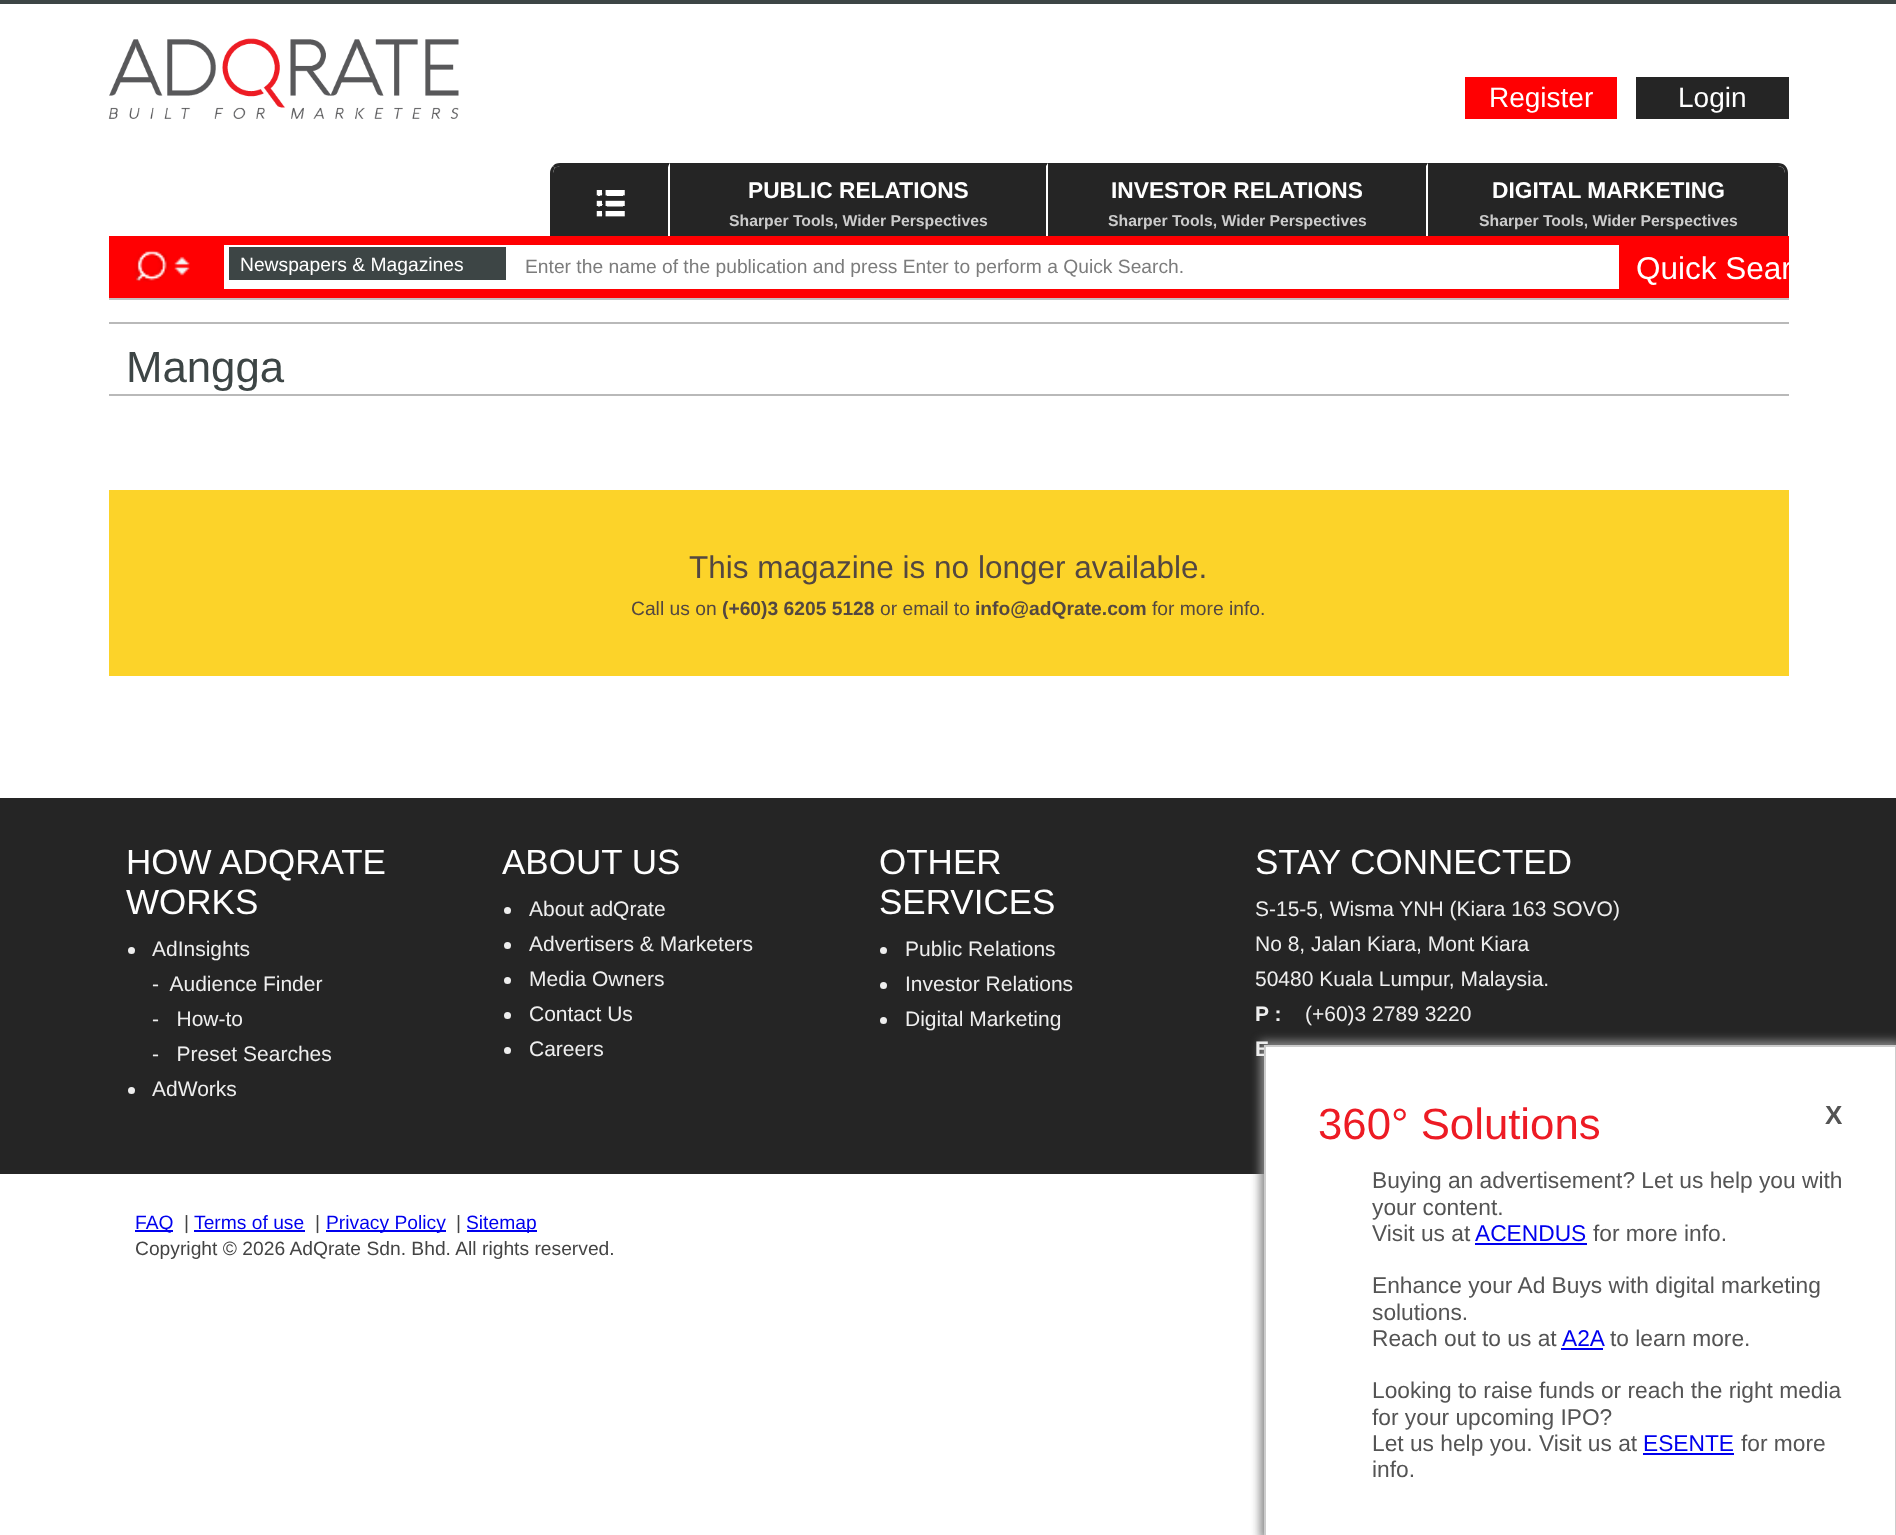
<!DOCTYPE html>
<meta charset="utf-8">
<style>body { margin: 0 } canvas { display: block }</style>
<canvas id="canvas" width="1896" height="1535"></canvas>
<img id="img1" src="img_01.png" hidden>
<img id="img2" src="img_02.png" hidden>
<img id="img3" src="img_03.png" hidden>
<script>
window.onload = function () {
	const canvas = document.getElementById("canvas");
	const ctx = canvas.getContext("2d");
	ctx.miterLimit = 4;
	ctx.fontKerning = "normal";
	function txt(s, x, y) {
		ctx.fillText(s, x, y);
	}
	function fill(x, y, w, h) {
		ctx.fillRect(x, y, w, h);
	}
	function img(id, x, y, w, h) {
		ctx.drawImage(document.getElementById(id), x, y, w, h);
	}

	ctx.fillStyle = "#FFFFFF";
	fill(0, 0, 1896, 1535);
	ctx.fillStyle = "#3D4545";
	fill(0, 0, 1896, 4);
	img("img1", 108, 38, 351, 81);
	ctx.fillStyle = "#FF0002";
	fill(1465, 77, 152, 42);
	ctx.fillStyle = "#252525";
	fill(1636, 77, 153, 42);
	ctx.beginPath();
	ctx.roundRect(553, 166, 116, 70, [7, 0, 0, 0]);
	ctx.fill();
	ctx.beginPath();
	ctx.moveTo(560, 163);
	ctx.lineTo(670, 163);
	ctx.lineTo(668, 167);
	ctx.lineTo(668, 166);
	ctx.lineTo(559, 166);
	ctx.lineTo(555, 168);
	ctx.lineTo(553, 166);
	ctx.bezierCurveTo(554, 164, 557, 163, 560, 163);
	ctx.closePath();
	ctx.fill();
	ctx.fillStyle = "#FFFFFF";
	ctx.beginPath();
	ctx.moveTo(668, 167);
	ctx.lineTo(668, 236);
	ctx.lineTo(670, 236);
	ctx.lineTo(670, 163);
	ctx.closePath();
	ctx.fill();
	ctx.fillStyle = "#252525";
	ctx.beginPath();
	ctx.moveTo(553, 166);
	ctx.lineTo(555, 168);
	ctx.bezierCurveTo(554, 169, 553, 171, 553, 173);
	ctx.lineTo(553, 236);
	ctx.lineTo(550, 236);
	ctx.lineTo(550, 173);
	ctx.bezierCurveTo(550, 170, 551, 168, 553, 166);
	ctx.closePath();
	ctx.fill();
	img("img2", 596, 190, 29, 27);
	fill(670, 163, 758, 73);
	ctx.fillStyle = "#FFFFFF";
	ctx.beginPath();
	ctx.moveTo(1048, 163);
	ctx.lineTo(1048, 236);
	ctx.lineTo(1046, 236);
	ctx.lineTo(1046, 166);
	ctx.closePath();
	ctx.fill();
	ctx.beginPath();
	ctx.moveTo(1428, 163);
	ctx.lineTo(1428, 236);
	ctx.lineTo(1426, 236);
	ctx.lineTo(1426, 166);
	ctx.closePath();
	ctx.fill();
	ctx.fillStyle = "#252525";
	ctx.beginPath();
	ctx.roundRect(1432, 166, 353, 70, [0, 7, 0, 0]);
	ctx.fill();
	ctx.beginPath();
	ctx.moveTo(1428, 163);
	ctx.lineTo(1778, 163);
	ctx.bezierCurveTo(1784, 163, 1788, 167, 1788, 173);
	ctx.lineTo(1788, 236);
	ctx.lineTo(1428, 236);
	ctx.closePath();
	ctx.moveTo(1432, 166);
	ctx.lineTo(1778, 166);
	ctx.bezierCurveTo(1782, 166, 1785, 169, 1785, 173);
	ctx.lineTo(1785, 236);
	ctx.lineTo(1432, 236);
	ctx.closePath();
	ctx.fill("evenodd");
	ctx.fillStyle = "#FF0002";
	fill(109, 236, 1680, 62);
	ctx.fillStyle = "#C2C2C2";
	fill(109, 298, 1680, 2);
	img("img3", 134, 250, 56, 32);
	ctx.fillStyle = "#FFFFFF";
	fill(224, 245, 1395, 44);
	ctx.fillStyle = "#3D4545";
	fill(229, 247, 277, 33);
	ctx.fillStyle = "#B9B9B9";
	fill(109, 322, 1680, 2);
	fill(109, 394, 1680, 2);
	ctx.fillStyle = "#FCD329";
	fill(109, 490, 1680, 186);
	ctx.fillStyle = "#252525";
	fill(0, 798, 1896, 376);
	ctx.fillStyle = "#EEEEEE";
	ctx.beginPath();
	ctx.arc(131.5, 950.5, 3.5, 0, Math.PI * 2);
	ctx.fill();
	ctx.beginPath();
	ctx.arc(131.5, 1090.5, 3.5, 0, Math.PI * 2);
	ctx.fill();
	ctx.beginPath();
	ctx.arc(507.5, 910.5, 3.5, 0, Math.PI * 2);
	ctx.fill();
	ctx.beginPath();
	ctx.arc(507.5, 945.5, 3.5, 0, Math.PI * 2);
	ctx.fill();
	ctx.beginPath();
	ctx.arc(507.5, 980.5, 3.5, 0, Math.PI * 2);
	ctx.fill();
	ctx.beginPath();
	ctx.arc(507.5, 1015.5, 3.5, 0, Math.PI * 2);
	ctx.fill();
	ctx.beginPath();
	ctx.arc(507.5, 1050.5, 3.5, 0, Math.PI * 2);
	ctx.fill();
	ctx.beginPath();
	ctx.arc(883.5, 950.5, 3.5, 0, Math.PI * 2);
	ctx.fill();
	ctx.beginPath();
	ctx.arc(883.5, 985.5, 3.5, 0, Math.PI * 2);
	ctx.fill();
	ctx.beginPath();
	ctx.arc(883.5, 1020.5, 3.5, 0, Math.PI * 2);
	ctx.fill();
	ctx.fillStyle = "#0000EE";
	fill(135, 1230, 38, 2);
	fill(194, 1230, 111, 2);
	fill(326, 1230, 120, 2);
	fill(467, 1230, 70, 2);
	ctx.fillStyle = "#888888";
	ctx.filter = "blur(5px)";
	ctx.beginPath();
	ctx.rect(1260, 1041, 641, 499);
	ctx.fill();
	ctx.filter = "none";
	ctx.font = "28px Liberation Sans";
	ctx.fillStyle = "#FFFFFF";
	txt("Register", 1489, 107);
	txt("Login", 1678, 107);
	ctx.font = "bold 22.75px Liberation Sans";
	txt("PUBLIC RELATIONS", 748, 198);
	ctx.font = "bold 15.75px Liberation Sans";
	ctx.fillStyle = "#CCCCCC";
	txt("Sharper Tools, Wider Perspectives", 729, 226);
	ctx.font = "bold 22.75px Liberation Sans";
	ctx.fillStyle = "#FFFFFF";
	txt("INVESTOR RELATIONS", 1111, 198);
	ctx.font = "bold 15.75px Liberation Sans";
	ctx.fillStyle = "#CCCCCC";
	txt("Sharper Tools, Wider Perspectives", 1108, 226);
	ctx.font = "bold 22.75px Liberation Sans";
	ctx.fillStyle = "#FFFFFF";
	txt("DIGITAL MARKETING", 1492, 198);
	ctx.font = "bold 15.75px Liberation Sans";
	ctx.fillStyle = "#CCCCCC";
	txt("Sharper Tools, Wider Perspectives", 1479, 226);
	ctx.font = "19.25px Liberation Sans";
	ctx.fillStyle = "#FFFFFF";
	txt("Newspapers & Magazines", 240, 271);
	ctx.fillStyle = "#7C7C7C";
	txt("Enter the name of the publication and press Enter to perform a Quick Search.", 525, 273);
	ctx.font = "31.5px Liberation Sans";
	ctx.fillStyle = "#FFFFFF";
	txt("Quick Sear", 1636, 279);
	ctx.font = "43.75px Liberation Sans";
	ctx.fillStyle = "#3D4545";
	txt("Mangga", 126, 382);
	ctx.font = "31.5px Liberation Sans";
	ctx.fillStyle = "#534741";
	txt("This magazine is no longer available.", 689, 578);
	ctx.font = "19.25px Liberation Sans";
	txt("Call us on", 631, 615);
	ctx.font = "bold 19.25px Liberation Sans";
	txt("(+60)3 6205 5128", 722, 615);
	ctx.font = "19.25px Liberation Sans";
	txt("or email to", 880, 615);
	ctx.font = "bold 19.25px Liberation Sans";
	txt("info@adQrate.com", 975, 615);
	ctx.font = "19.25px Liberation Sans";
	txt("for more info.", 1152, 615);
	ctx.font = "35px Liberation Sans";
	ctx.fillStyle = "#FFFFFF";
	txt("HOW ADQRATE", 126, 874);
	txt("WORKS", 126, 914);
	ctx.font = "21px Liberation Sans";
	ctx.fillStyle = "#EEEEEE";
	txt("AdInsights", 152, 956);
	txt("-  Audience Finder", 152, 991);
	txt("-   How-to", 152, 1026);
	txt("-   Preset Searches", 152, 1061);
	txt("AdWorks", 152, 1096);
	ctx.font = "35px Liberation Sans";
	ctx.fillStyle = "#FFFFFF";
	txt("ABOUT US", 502, 874);
	ctx.font = "21px Liberation Sans";
	ctx.fillStyle = "#EEEEEE";
	txt("About adQrate", 529, 916);
	txt("Advertisers & Marketers", 529, 951);
	txt("Media Owners", 529, 986);
	txt("Contact Us", 529, 1021);
	txt("Careers", 529, 1056);
	ctx.font = "35px Liberation Sans";
	ctx.fillStyle = "#FFFFFF";
	txt("OTHER", 879, 874);
	txt("SERVICES", 879, 914);
	ctx.font = "21px Liberation Sans";
	ctx.fillStyle = "#EEEEEE";
	txt("Public Relations", 905, 956);
	txt("Investor Relations", 905, 991);
	txt("Digital Marketing", 905, 1026);
	ctx.font = "35px Liberation Sans";
	ctx.fillStyle = "#FFFFFF";
	txt("STAY CONNECTED", 1255, 874);
	ctx.font = "21px Liberation Sans";
	ctx.fillStyle = "#EEEEEE";
	txt("S-15-5, Wisma YNH (Kiara 163 SOVO)", 1255, 916);
	txt("No 8, Jalan Kiara, Mont Kiara", 1255, 951);
	txt("50480 Kuala Lumpur, Malaysia.", 1255, 986);
	ctx.font = "bold 21px Liberation Sans";
	txt("P :", 1255, 1021);
	ctx.font = "21px Liberation Sans";
	txt("(+60)3 2789 3220", 1305, 1021);
	ctx.font = "bold 21px Liberation Sans";
	txt("E", 1255, 1056);
	ctx.font = "19.25px Liberation Sans";
	ctx.fillStyle = "#0000EE";
	txt("FAQ", 135, 1229);
	ctx.fillStyle = "#444444";
	txt("|", 184, 1229);
	ctx.fillStyle = "#0000EE";
	txt("Terms of use", 194, 1229);
	ctx.fillStyle = "#444444";
	txt("|", 315, 1229);
	ctx.fillStyle = "#0000EE";
	txt("Privacy Policy", 326, 1229);
	ctx.fillStyle = "#444444";
	txt("|", 456, 1229);
	ctx.fillStyle = "#0000EE";
	txt("Sitemap", 466, 1229);
	ctx.fillStyle = "#444444";
	txt("Copyright © 2026 AdQrate Sdn. Bhd. All rights reserved.", 135, 1255);
	ctx.fillStyle = "#FFFFFF";
	ctx.beginPath();
	ctx.rect(1265, 1046, 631, 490);
	ctx.fill();
	ctx.strokeStyle = "#CCCCCC";
	ctx.lineWidth = 2;
	ctx.stroke();
	ctx.font = "43.75px Liberation Sans";
	ctx.fillStyle = "#ED1B24";
	txt("360° Solutions", 1318, 1139);
	ctx.font = "bold 26px Liberation Sans";
	ctx.fillStyle = "#545454";
	txt("X", 1825, 1124);
	ctx.font = "22.75px Liberation Sans";
	txt("Buying an advertisement? Let us help you with", 1372, 1188);
	txt("your content.", 1372, 1215);
	txt("Visit us at", 1372, 1241);
	ctx.fillStyle = "#0000EE";
	txt("ACENDUS", 1475, 1241);
	fill(1475, 1243, 112, 2);
	ctx.fillStyle = "#545454";
	txt("for more info.", 1593, 1241);
	txt("Enhance your Ad Buys with digital marketing", 1372, 1293);
	txt("solutions.", 1372, 1320);
	txt("Reach out to us at", 1372, 1346);
	ctx.fillStyle = "#0000EE";
	txt("A2A", 1562, 1346);
	fill(1561, 1348, 42, 2);
	ctx.fillStyle = "#545454";
	txt("to learn more.", 1610, 1346);
	txt("Looking to raise funds or reach the right media", 1372, 1398);
	txt("for your upcoming IPO?", 1372, 1425);
	txt("Let us help you. Visit us at", 1372, 1451);
	ctx.fillStyle = "#0000EE";
	txt("ESENTE", 1643, 1451);
	fill(1643, 1453, 91, 2);
	ctx.fillStyle = "#545454";
	txt("for more", 1741, 1451);
	txt("info.", 1372, 1477);
};
</script>
